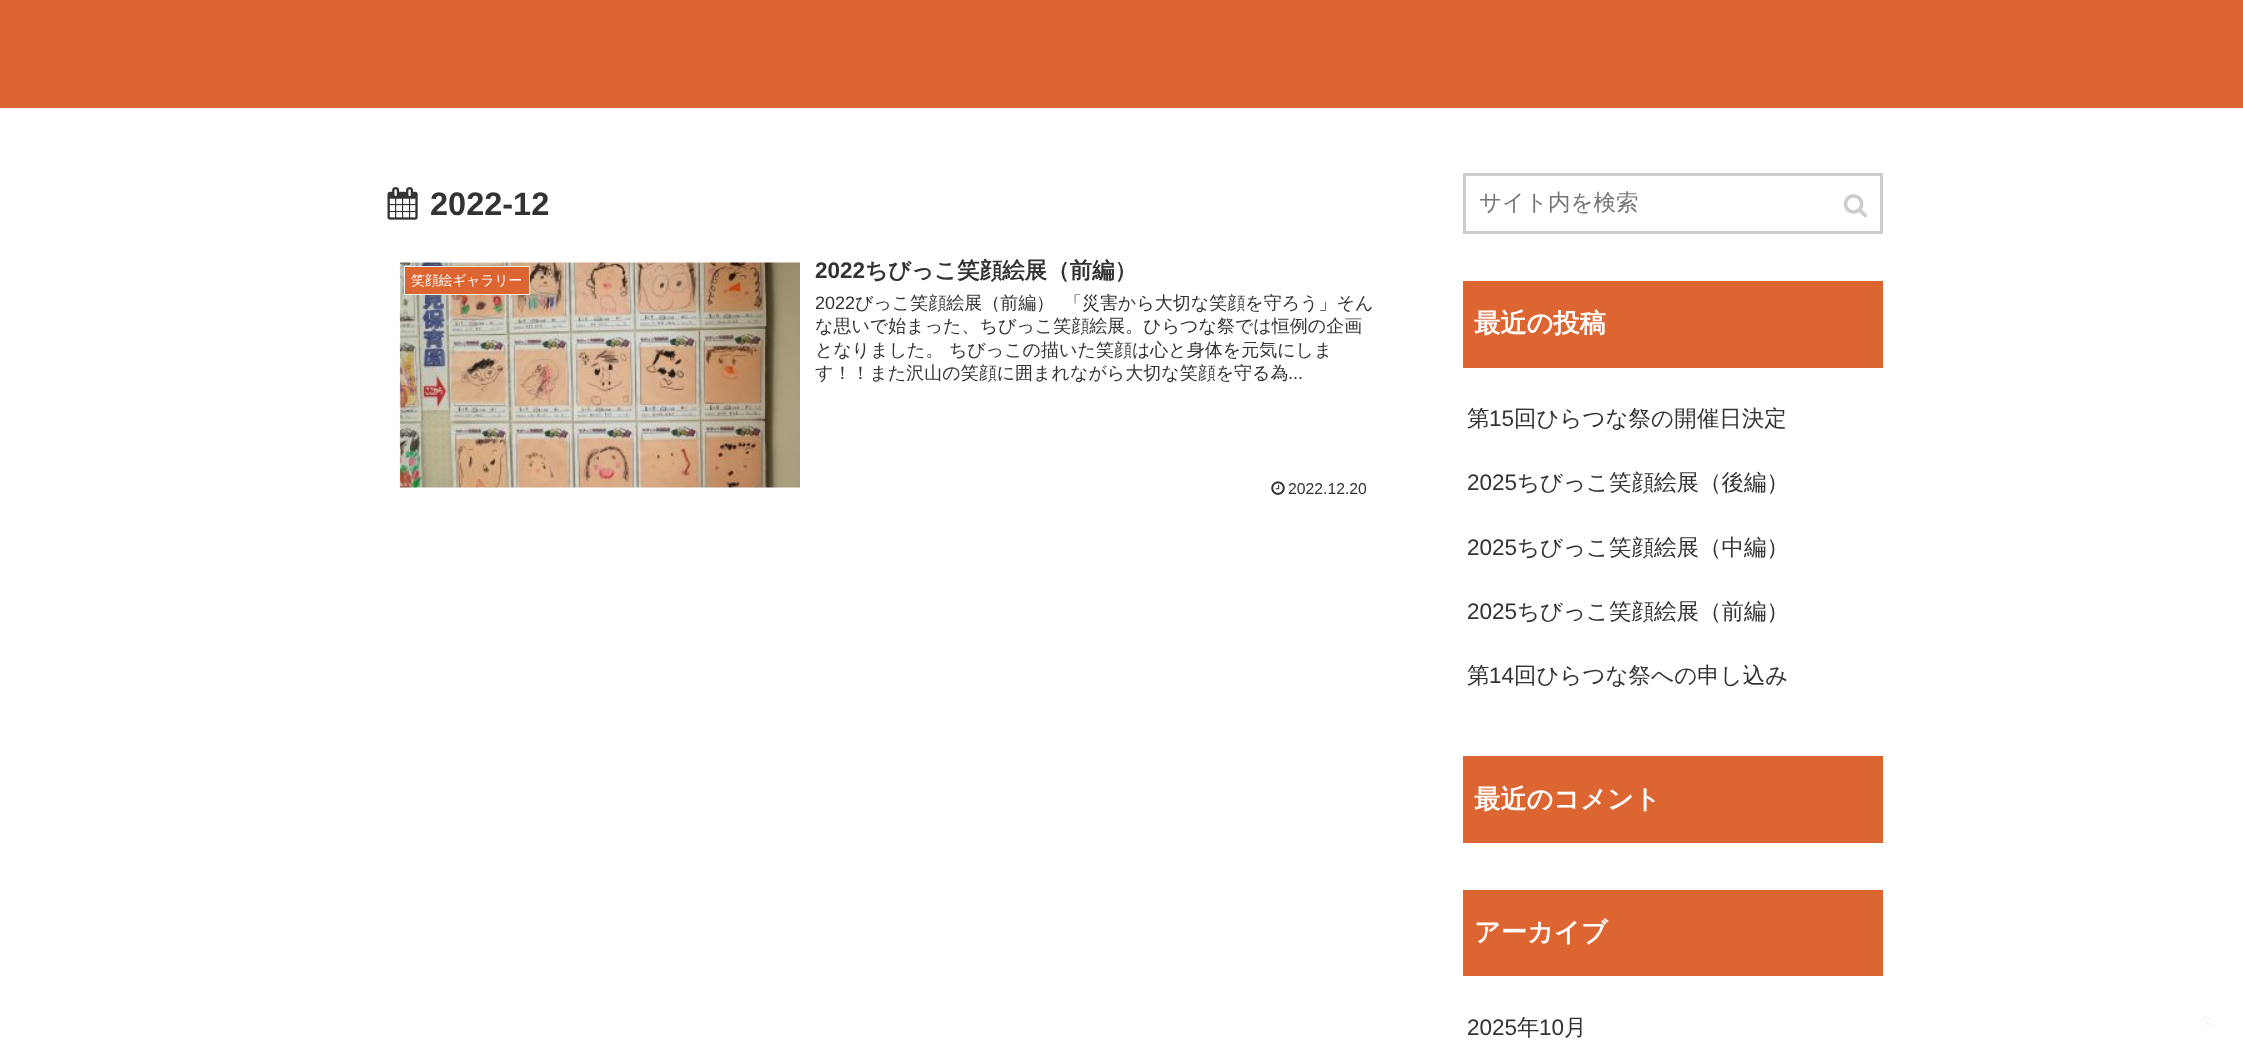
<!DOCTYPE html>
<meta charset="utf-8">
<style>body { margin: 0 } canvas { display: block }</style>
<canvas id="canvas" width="2243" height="1058"></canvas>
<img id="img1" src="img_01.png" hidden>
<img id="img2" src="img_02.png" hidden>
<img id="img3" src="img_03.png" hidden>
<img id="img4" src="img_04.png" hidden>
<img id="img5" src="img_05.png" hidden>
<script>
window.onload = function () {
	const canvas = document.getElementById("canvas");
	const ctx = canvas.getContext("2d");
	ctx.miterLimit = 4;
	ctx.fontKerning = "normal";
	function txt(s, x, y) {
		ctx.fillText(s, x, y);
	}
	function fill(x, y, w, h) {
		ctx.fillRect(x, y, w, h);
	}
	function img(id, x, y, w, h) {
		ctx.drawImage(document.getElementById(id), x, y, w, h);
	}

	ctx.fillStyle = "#FFFFFF";
	fill(0, 0, 2243, 1058);
	ctx.fillStyle = "#DD6531";
	fill(0, 0, 2243, 108);
	img("img1", 387, 187, 31, 33);
	img("img2", 399, 262, 401, 226);
	ctx.beginPath();
	ctx.rect(404.5, 266.5, 125, 28);
	ctx.fill();
	ctx.strokeStyle = "#EEEEEE";
	ctx.stroke();
	img("img3", 1271, 481, 14, 14);
	ctx.strokeStyle = "#CCCCCC";
	ctx.lineWidth = 3;
	ctx.strokeRect(1464.5, 174.5, 417, 58);
	img("img4", 1843, 194, 24, 24);
	fill(1463, 281, 420, 87);
	fill(1463, 756, 420, 87);
	fill(1463, 890, 420, 86);
	img("img5", 2199, 1015, 15, 14);
	ctx.font = "bold 32.5px Liberation Sans";
	ctx.fillStyle = "#333333";
	txt("2022-12", 430, 215);
	ctx.font = "500 13.75px WenQuanYi Zen Hei";
	ctx.fillStyle = "#FFFFFF";
	txt("笑顔絵ギャラリー", 411, 285);
	ctx.font = "bold 22.5px Liberation Sans";
	ctx.fillStyle = "#333333";
	txt("2022", 815, 278);
	ctx.font = "bold 22.5px WenQuanYi Zen Hei";
	txt("ちびっこ笑顔絵展（前編）", 865, 278);
	ctx.font = "18px Liberation Sans";
	txt("2022", 815, 309);
	ctx.font = "500 18px WenQuanYi Zen Hei";
	txt("びっこ笑顔絵展（前編）", 855, 309);
	txt("「災害から大切な笑顔を守ろう」そん", 1064, 309);
	txt("な思いで始まった、ちびっこ笑顔絵展。ひらつな祭では恒例の企画", 815, 332);
	txt("となりました。 ちびっこの描いた笑顔は心と身体を元気にしま", 815, 356);
	txt("す！！また沢山の笑顔に囲まれながら大切な笑顔を守る為", 815, 379);
	ctx.font = "18px Liberation Sans";
	txt("...", 1288, 379);
	ctx.font = "15.75px Liberation Sans";
	txt("2022.12.20", 1288, 494);
	ctx.font = "500 22.5px WenQuanYi Zen Hei";
	ctx.fillStyle = "#757575";
	txt("サイト内を検索", 1479, 210);
	ctx.font = "bold 26.25px WenQuanYi Zen Hei";
	ctx.fillStyle = "#FFFFFF";
	txt("最近の投稿", 1474, 332);
	ctx.font = "500 22.5px WenQuanYi Zen Hei";
	ctx.fillStyle = "#333333";
	txt("第", 1467, 426);
	ctx.font = "22.5px Liberation Sans";
	txt("15", 1489, 426);
	ctx.font = "500 22.5px WenQuanYi Zen Hei";
	txt("回ひらつな祭の開催日決定", 1514, 426);
	ctx.font = "22.5px Liberation Sans";
	txt("2025", 1467, 490);
	ctx.font = "500 22.5px WenQuanYi Zen Hei";
	txt("ちびっこ笑顔絵展（後編）", 1517, 490);
	ctx.font = "22.5px Liberation Sans";
	txt("2025", 1467, 555);
	ctx.font = "500 22.5px WenQuanYi Zen Hei";
	txt("ちびっこ笑顔絵展（中編）", 1517, 555);
	ctx.font = "22.5px Liberation Sans";
	txt("2025", 1467, 619);
	ctx.font = "500 22.5px WenQuanYi Zen Hei";
	txt("ちびっこ笑顔絵展（前編）", 1517, 619);
	txt("第", 1467, 683);
	ctx.font = "22.5px Liberation Sans";
	txt("14", 1489, 683);
	ctx.font = "500 22.5px WenQuanYi Zen Hei";
	txt("回ひらつな祭への申し込み", 1514, 683);
	ctx.font = "bold 26.25px WenQuanYi Zen Hei";
	ctx.fillStyle = "#FFFFFF";
	txt("最近のコメント", 1474, 808);
	txt("アーカイブ", 1474, 941);
	ctx.font = "22.5px Liberation Sans";
	ctx.fillStyle = "#333333";
	txt("2025", 1467, 1035);
	ctx.font = "500 22.5px WenQuanYi Zen Hei";
	txt("年", 1517, 1035);
	ctx.font = "22.5px Liberation Sans";
	txt("10", 1539, 1035);
	ctx.font = "500 22.5px WenQuanYi Zen Hei";
	txt("月", 1564, 1035);
};
</script>
